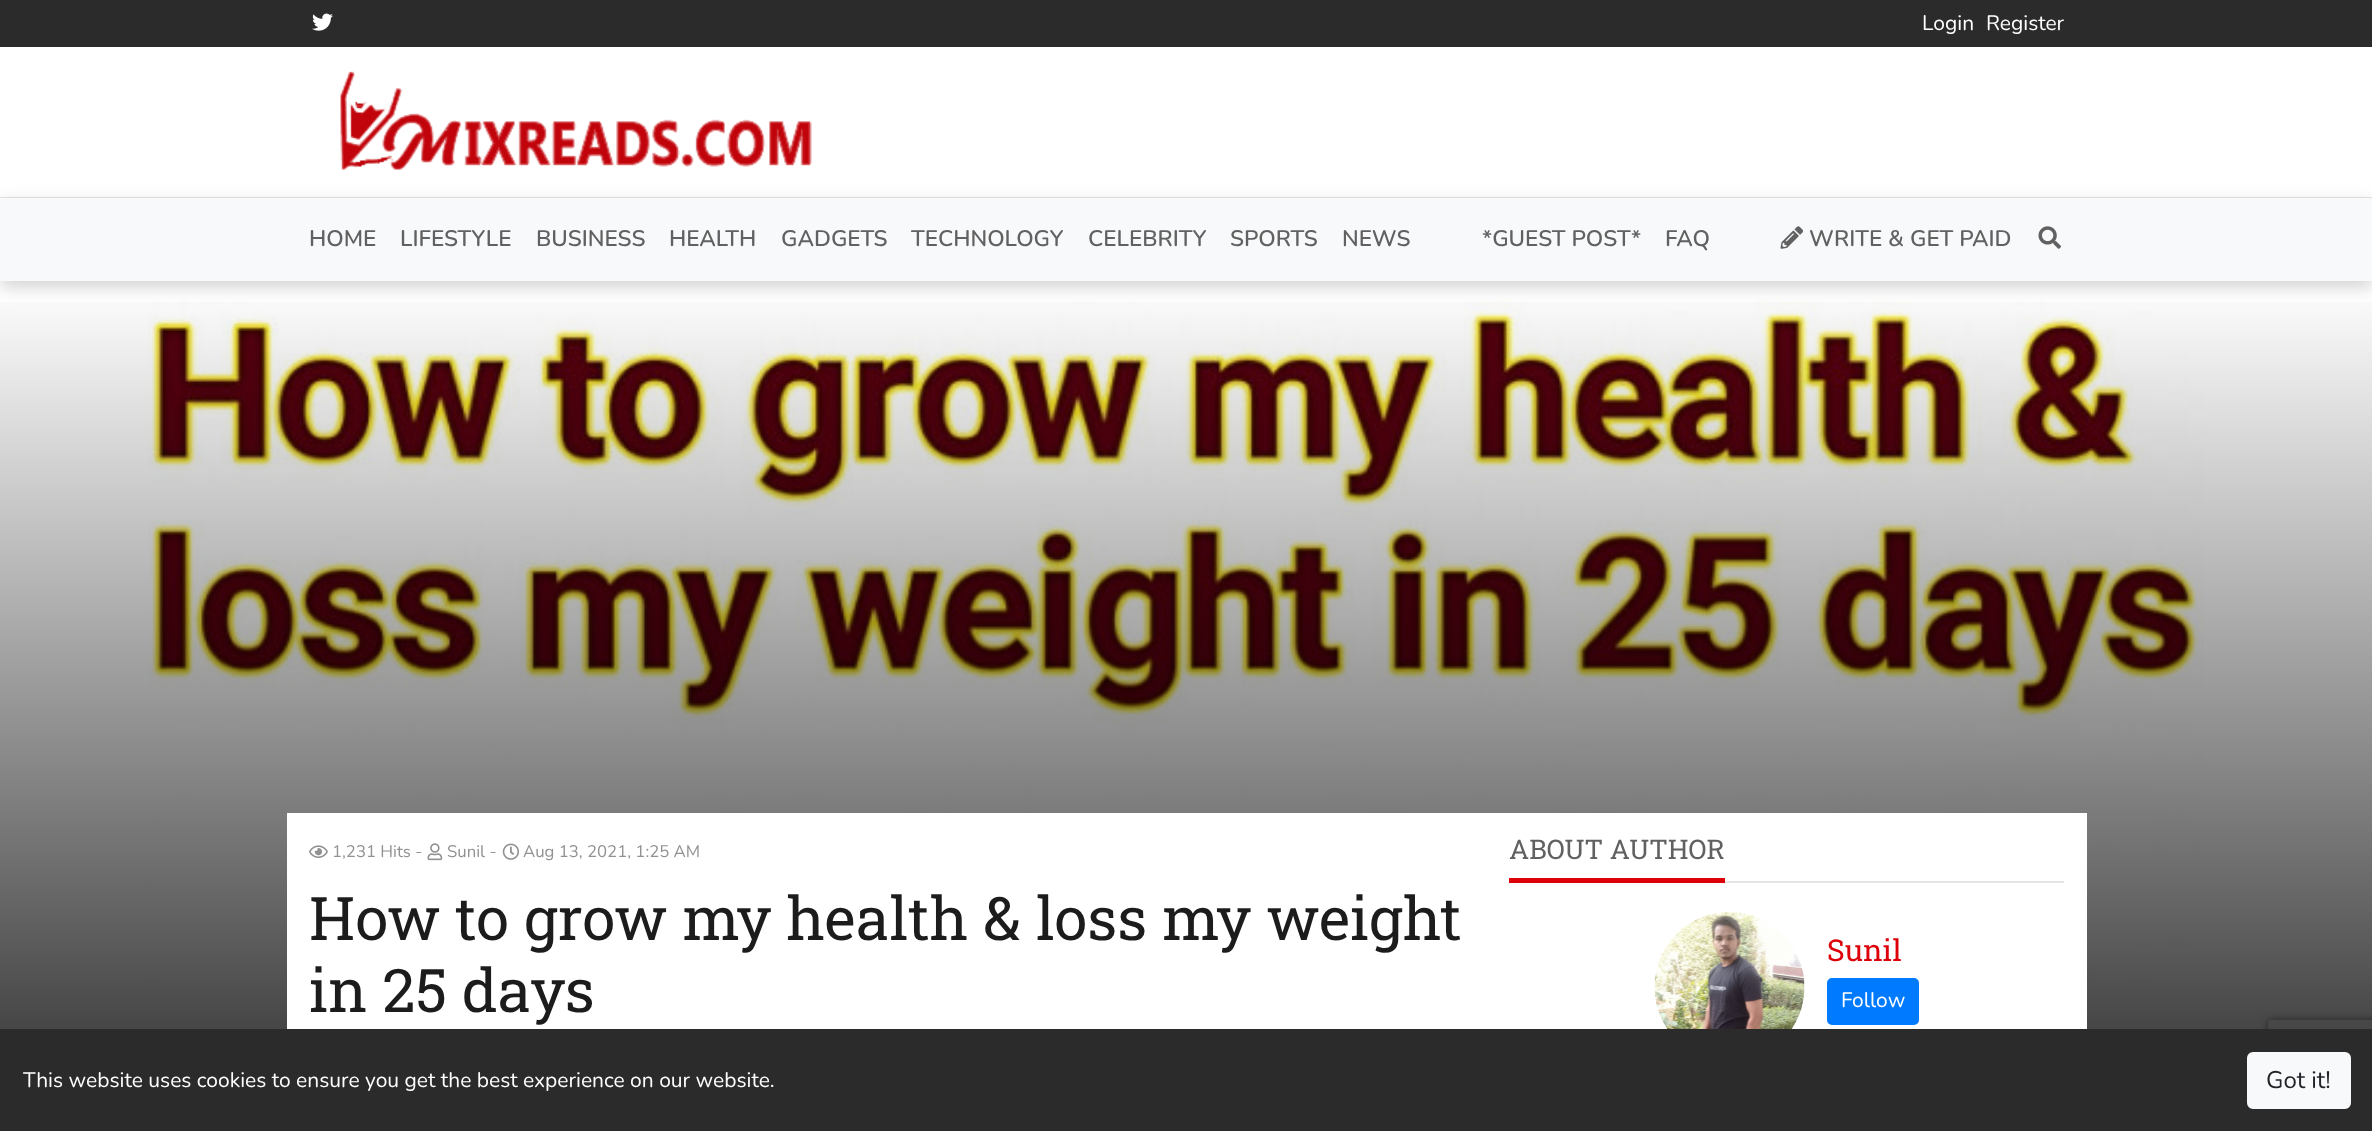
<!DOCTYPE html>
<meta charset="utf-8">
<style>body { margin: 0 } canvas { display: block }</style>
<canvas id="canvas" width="2372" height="1131"></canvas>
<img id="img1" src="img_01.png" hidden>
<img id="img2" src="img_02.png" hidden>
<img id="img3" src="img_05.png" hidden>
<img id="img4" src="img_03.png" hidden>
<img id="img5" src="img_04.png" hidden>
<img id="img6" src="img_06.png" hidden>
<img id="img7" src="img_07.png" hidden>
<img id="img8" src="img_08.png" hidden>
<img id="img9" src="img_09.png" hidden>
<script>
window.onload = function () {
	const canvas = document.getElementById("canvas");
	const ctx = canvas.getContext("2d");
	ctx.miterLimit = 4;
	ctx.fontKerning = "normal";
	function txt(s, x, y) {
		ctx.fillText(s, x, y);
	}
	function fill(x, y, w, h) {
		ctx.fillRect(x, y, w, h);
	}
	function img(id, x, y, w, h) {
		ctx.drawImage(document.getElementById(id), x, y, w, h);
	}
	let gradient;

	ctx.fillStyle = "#FFFFFF";
	fill(0, 0, 2372, 1131);
	ctx.fillStyle = "#2B2B2B";
	fill(0, 0, 2372, 47);
	img("img1", 312, 13, 21, 18);
	ctx.fillStyle = "#E5E5E5";
	fill(0, 197, 2372, 1);
	img("img2", 340, 71, 472, 99);
	img("img3", 148, 298, 2056, 731);
	ctx.save();
	ctx.beginPath();
	ctx.moveTo(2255, 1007);
	ctx.lineTo(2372, 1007);
	ctx.lineTo(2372, 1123);
	ctx.lineTo(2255, 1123);
	ctx.closePath();
	ctx.moveTo(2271, 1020);
	ctx.lineTo(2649, 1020);
	ctx.bezierCurveTo(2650.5, 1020, 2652, 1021.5, 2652, 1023);
	ctx.lineTo(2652, 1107);
	ctx.bezierCurveTo(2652, 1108.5, 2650.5, 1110, 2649, 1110);
	ctx.lineTo(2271, 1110);
	ctx.bezierCurveTo(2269.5, 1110, 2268, 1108.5, 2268, 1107);
	ctx.lineTo(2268, 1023);
	ctx.bezierCurveTo(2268, 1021.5, 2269.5, 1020, 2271, 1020);
	ctx.closePath();
	ctx.clip("evenodd");
	ctx.fillStyle = "#808080";
	ctx.filter = "blur(4px)";
	ctx.beginPath();
	ctx.roundRect(2268, 1020, 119, 90, 3);
	ctx.fill();
	ctx.filter = "none";
	ctx.restore();
	gradient = ctx.createLinearGradient(1187, 280, 1187, 1053);
	gradient.addColorStop(0, "rgba(0, 0, 0, 0)");
	gradient.addColorStop(1, "rgba(0, 0, 0, 0.75)");
	ctx.fillStyle = gradient;
	fill(0, 302, 2372, 727);
	ctx.fillStyle = "rgba(0, 0, 0, 0.18)";
	ctx.filter = "blur(9px)";
	ctx.beginPath();
	ctx.rect(0, 204, 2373, 83);
	ctx.fill();
	ctx.filter = "none";
	ctx.fillStyle = "#F8F9FA";
	fill(0, 198, 2372, 83);
	img("img4", 1780, 226, 23, 23);
	img("img5", 2038, 226, 23, 23);
	ctx.fillStyle = "#FFFFFF";
	fill(287, 813, 1800, 216);
	img("img6", 309, 845, 19, 13);
	img("img7", 427, 843, 16, 18);
	img("img8", 502, 843, 17, 17);
	ctx.fillStyle = "#E5E5E5";
	fill(1725, 881, 339, 2);
	ctx.fillStyle = "#DD0009";
	fill(1509, 878, 216, 5);
	img("img9", 1654, 912, 151, 117);
	ctx.fillStyle = "#007BFF";
	ctx.beginPath();
	ctx.roundRect(1828, 979, 90, 45, 4);
	ctx.fill();
	ctx.strokeStyle = "#007BFF";
	ctx.lineWidth = 2;
	ctx.stroke();
	ctx.fillStyle = "#2B2B2B";
	fill(0, 1029, 2372, 102);
	ctx.fillStyle = "#F8F9FA";
	ctx.beginPath();
	ctx.roundRect(2248, 1053, 102, 55, 5);
	ctx.fill();
	ctx.strokeStyle = "#F8F9FA";
	ctx.stroke();
	ctx.font = "21px Nunito";
	ctx.fillStyle = "#FFFFFF";
	txt("Login", 1922, 30);
	txt("Register", 1986, 30);
	ctx.font = "600 22.5px Nunito";
	ctx.fillStyle = "#616161";
	txt("HOME", 309, 246);
	txt("LIFESTYLE", 400, 246);
	txt("BUSINESS", 536, 246);
	txt("HEALTH", 669, 246);
	txt("GADGETS", 781, 246);
	txt("TECHNOLOGY", 911, 246);
	txt("CELEBRITY", 1088, 246);
	txt("SPORTS", 1230, 246);
	txt("NEWS", 1342, 246);
	txt("*GUEST POST*", 1482, 246);
	txt("FAQ", 1665, 246);
	txt("WRITE & GET PAID", 1809, 246);
	ctx.font = "16.75px Nunito";
	ctx.fillStyle = "#919191";
	txt("1,231 Hits -", 332, 857);
	txt("Sunil -", 447, 857);
	txt("Aug 13, 2021, 1:25 AM", 523, 857);
	ctx.font = "60px Roboto Slab";
	ctx.fillStyle = "#1C1C1C";
	txt("How to grow my health & loss my weight", 309, 940);
	txt("in 25 days", 309, 1012);
	ctx.font = "27px Roboto Slab";
	ctx.fillStyle = "#616161";
	txt("ABOUT AUTHOR", 1509, 859);
	ctx.font = "30px Roboto Slab";
	ctx.fillStyle = "#DD0009";
	txt("Sunil", 1827, 961);
	ctx.font = "21px Nunito";
	ctx.fillStyle = "#FFFFFF";
	txt("Follow", 1841, 1007);
	txt("This website uses cookies to ensure you get the best experience on our website.", 23, 1087);
	ctx.font = "24px Nunito";
	ctx.fillStyle = "#212529";
	txt("Got it!", 2266, 1088);
};
</script>
